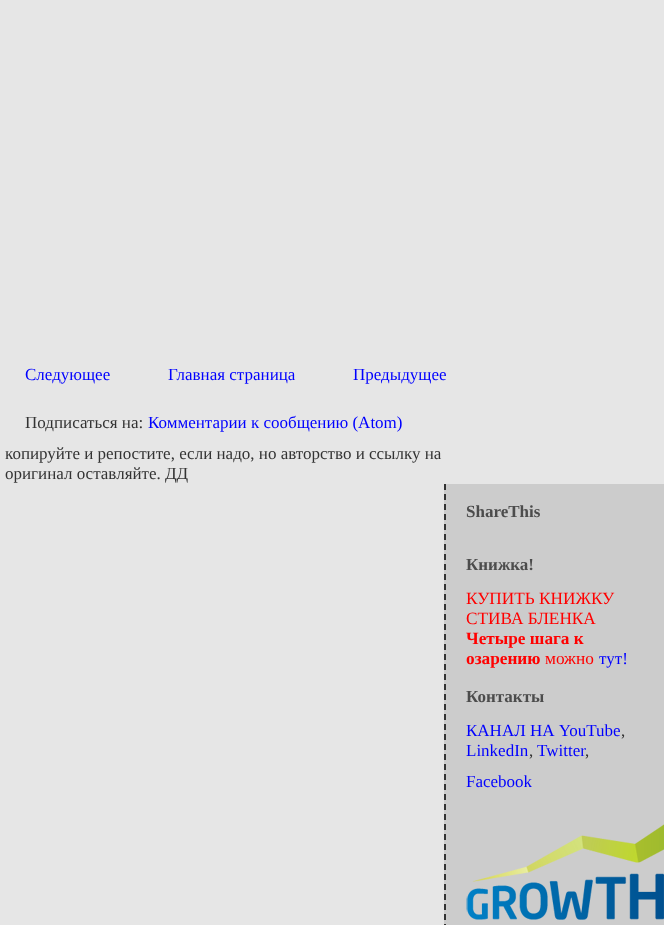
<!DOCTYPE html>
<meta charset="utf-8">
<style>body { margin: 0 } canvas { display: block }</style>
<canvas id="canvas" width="664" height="925"></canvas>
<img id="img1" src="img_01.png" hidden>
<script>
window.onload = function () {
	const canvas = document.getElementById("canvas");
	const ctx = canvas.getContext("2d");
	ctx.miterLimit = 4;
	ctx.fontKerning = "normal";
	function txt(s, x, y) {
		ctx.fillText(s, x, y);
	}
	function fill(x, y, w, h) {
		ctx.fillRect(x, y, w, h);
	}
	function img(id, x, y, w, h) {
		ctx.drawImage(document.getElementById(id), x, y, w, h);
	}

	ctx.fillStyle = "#E6E6E6";
	fill(0, 0, 664, 925);
	ctx.fillStyle = "#CCCCCC";
	fill(444, 484, 220, 441);
	ctx.beginPath();
	ctx.moveTo(445, 484);
	ctx.lineTo(445, 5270);
	ctx.strokeStyle = "#333333";
	ctx.lineWidth = 2;
	ctx.setLineDash([6, 4]);
	ctx.stroke();
	img("img1", 466, 824, 198, 96);
	ctx.font = "17px Liberation Serif";
	ctx.fillStyle = "#0000FF";
	txt("Следующее", 25, 380);
	txt("Главная страница", 168, 380);
	txt("Предыдущее", 353, 380);
	ctx.fillStyle = "#333333";
	txt("Подписаться на:", 25, 428);
	ctx.fillStyle = "#0000FF";
	txt("Комментарии к сообщению (Atom)", 148, 428);
	ctx.fillStyle = "#333333";
	txt("копируйте и репостите, если надо, но авторство и ссылку на", 5, 459);
	txt("оригинал оставляйте. ДД", 5, 479);
	ctx.font = "bold 17px Liberation Serif";
	ctx.fillStyle = "#4C4C4C";
	txt("ShareThis", 466, 517);
	txt("Книжка!", 466, 570);
	ctx.font = "17.25px Liberation Serif";
	ctx.fillStyle = "#FF0000";
	txt("КУПИТЬ КНИЖКУ", 466, 604);
	txt("СТИВА БЛЕНКА", 466, 624);
	ctx.font = "bold 17.25px Liberation Serif";
	txt("Четыре шага к", 466, 644);
	txt("озарению", 466, 664);
	ctx.font = "17.25px Liberation Serif";
	txt("можно", 545, 664);
	ctx.font = "17px Liberation Serif";
	ctx.fillStyle = "#0000FF";
	txt("тут!", 599, 664);
	ctx.font = "bold 17px Liberation Serif";
	ctx.fillStyle = "#4C4C4C";
	txt("Контакты", 466, 702);
	ctx.font = "17px Liberation Serif";
	ctx.fillStyle = "#0000FF";
	txt("КАНАЛ НА YouTube", 466, 736);
	ctx.fillStyle = "#333333";
	txt(",", 621, 736);
	ctx.fillStyle = "#0000FF";
	txt("LinkedIn", 466, 756);
	ctx.fillStyle = "#333333";
	txt(",", 529, 756);
	ctx.fillStyle = "#0000FF";
	txt("Twitter", 537, 756);
	ctx.fillStyle = "#333333";
	txt(",", 585, 756);
	ctx.fillStyle = "#0000FF";
	txt("Facebook", 466, 787);
};
</script>
